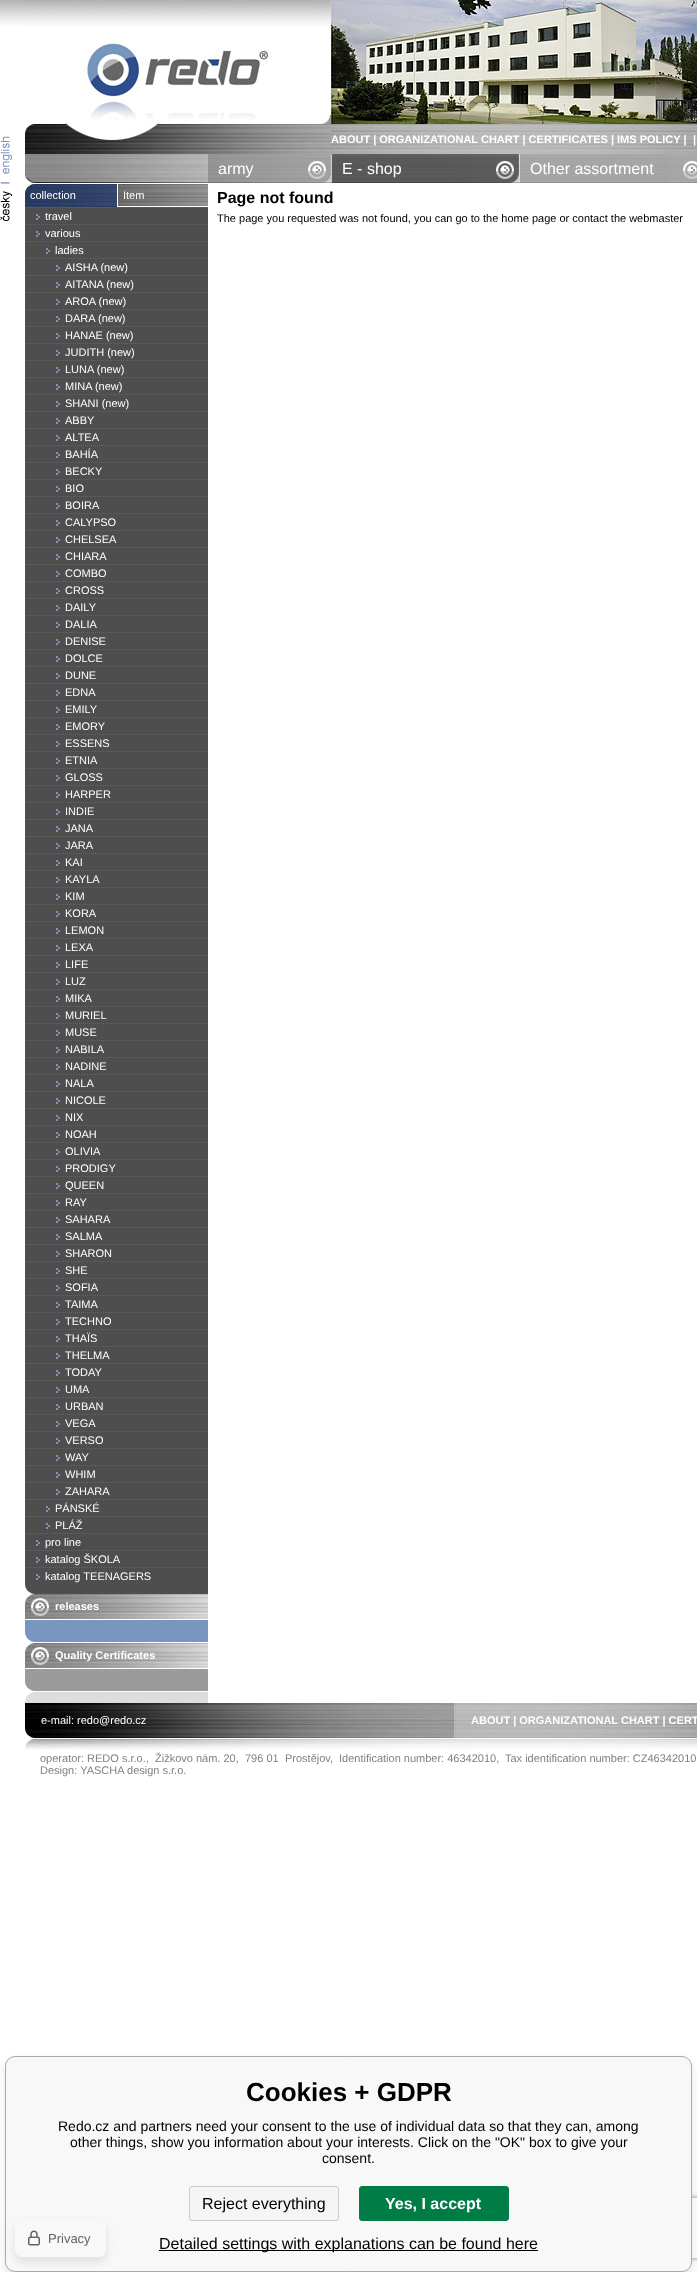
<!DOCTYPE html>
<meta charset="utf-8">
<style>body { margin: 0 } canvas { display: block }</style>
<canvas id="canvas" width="697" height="2272"></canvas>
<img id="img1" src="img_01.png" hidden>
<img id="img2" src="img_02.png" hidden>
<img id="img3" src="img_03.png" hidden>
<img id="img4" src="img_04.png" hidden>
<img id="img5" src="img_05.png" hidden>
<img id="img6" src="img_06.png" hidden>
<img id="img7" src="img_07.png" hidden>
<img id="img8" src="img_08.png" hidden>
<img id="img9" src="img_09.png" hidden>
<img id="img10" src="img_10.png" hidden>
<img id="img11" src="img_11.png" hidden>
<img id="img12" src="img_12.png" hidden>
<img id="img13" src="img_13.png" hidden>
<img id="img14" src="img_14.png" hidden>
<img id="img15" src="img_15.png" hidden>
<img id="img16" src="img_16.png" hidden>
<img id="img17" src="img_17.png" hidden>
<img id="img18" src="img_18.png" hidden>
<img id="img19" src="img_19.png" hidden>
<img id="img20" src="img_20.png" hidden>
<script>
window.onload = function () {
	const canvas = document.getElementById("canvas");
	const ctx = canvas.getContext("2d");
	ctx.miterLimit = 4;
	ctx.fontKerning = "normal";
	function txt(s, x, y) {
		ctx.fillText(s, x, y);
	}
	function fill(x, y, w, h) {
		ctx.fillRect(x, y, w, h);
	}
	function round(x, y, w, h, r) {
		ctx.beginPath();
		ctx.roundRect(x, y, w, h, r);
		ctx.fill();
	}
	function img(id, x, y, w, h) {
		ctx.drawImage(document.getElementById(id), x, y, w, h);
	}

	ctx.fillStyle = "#FFFFFF";
	fill(0, 0, 697, 2272);
	img("img1", 0, 0, 25, 26);
	img("img2", 0, 183, 12, 38);
	img("img3", 0, 136, 12, 47);
	img("img4", 25, 124, 672, 30);
	img("img5", 25, 0, 306, 147);
	img("img6", 331, 0, 366, 124);
	img("img7", 25, 154, 307, 29);
	img("img8", 208, 154, 123, 29);
	img("img9", 332, 154, 188, 29);
	img("img10", 520, 154, 177, 29);
	ctx.fillStyle = "#DCDEDC";
	fill(25, 1692, 183, 11);
	ctx.fillStyle = "#4E4E4E";
	fill(25, 207, 183, 1387);
	img("img11", 25, 1584, 9, 10);
	img("img12", 25, 184, 183, 23);
	ctx.fillStyle = "#2A3C62";
	fill(66, 206, 51, 1);
	ctx.fillStyle = "#FFFFFF";
	fill(118, 206, 90, 1);
	ctx.beginPath();
	ctx.moveTo(25, 207.5);
	ctx.lineTo(208, 207.5);
	ctx.strokeStyle = "#626462";
	ctx.setLineDash([1, 1]);
	ctx.stroke();
	img("img13", 36, 214, 4, 6);
	ctx.beginPath();
	ctx.moveTo(25, 224.5);
	ctx.lineTo(208, 224.5);
	ctx.stroke();
	img("img13", 36, 231, 4, 6);
	ctx.beginPath();
	ctx.moveTo(25, 241.5);
	ctx.lineTo(208, 241.5);
	ctx.stroke();
	img("img13", 46, 248, 4, 6);
	ctx.beginPath();
	ctx.moveTo(25, 258.5);
	ctx.lineTo(208, 258.5);
	ctx.stroke();
	img("img13", 56, 265, 4, 6);
	ctx.beginPath();
	ctx.moveTo(25, 275.5);
	ctx.lineTo(208, 275.5);
	ctx.stroke();
	img("img13", 56, 282, 4, 6);
	ctx.beginPath();
	ctx.moveTo(25, 292.5);
	ctx.lineTo(208, 292.5);
	ctx.stroke();
	img("img13", 56, 299, 4, 6);
	ctx.beginPath();
	ctx.moveTo(25, 309.5);
	ctx.lineTo(208, 309.5);
	ctx.stroke();
	img("img13", 56, 316, 4, 6);
	ctx.beginPath();
	ctx.moveTo(25, 326.5);
	ctx.lineTo(208, 326.5);
	ctx.stroke();
	img("img13", 56, 333, 4, 6);
	ctx.beginPath();
	ctx.moveTo(25, 343.5);
	ctx.lineTo(208, 343.5);
	ctx.stroke();
	img("img13", 56, 350, 4, 6);
	ctx.beginPath();
	ctx.moveTo(25, 360.5);
	ctx.lineTo(208, 360.5);
	ctx.stroke();
	img("img13", 56, 367, 4, 6);
	ctx.beginPath();
	ctx.moveTo(25, 377.5);
	ctx.lineTo(208, 377.5);
	ctx.stroke();
	img("img13", 56, 384, 4, 6);
	ctx.beginPath();
	ctx.moveTo(25, 394.5);
	ctx.lineTo(208, 394.5);
	ctx.stroke();
	img("img13", 56, 401, 4, 6);
	ctx.beginPath();
	ctx.moveTo(25, 411.5);
	ctx.lineTo(208, 411.5);
	ctx.stroke();
	img("img13", 56, 418, 4, 6);
	ctx.beginPath();
	ctx.moveTo(25, 428.5);
	ctx.lineTo(208, 428.5);
	ctx.stroke();
	img("img13", 56, 435, 4, 6);
	ctx.beginPath();
	ctx.moveTo(25, 445.5);
	ctx.lineTo(208, 445.5);
	ctx.stroke();
	img("img13", 56, 452, 4, 6);
	ctx.beginPath();
	ctx.moveTo(25, 462.5);
	ctx.lineTo(208, 462.5);
	ctx.stroke();
	img("img13", 56, 469, 4, 6);
	ctx.beginPath();
	ctx.moveTo(25, 479.5);
	ctx.lineTo(208, 479.5);
	ctx.stroke();
	img("img13", 56, 486, 4, 6);
	ctx.beginPath();
	ctx.moveTo(25, 496.5);
	ctx.lineTo(208, 496.5);
	ctx.stroke();
	img("img13", 56, 503, 4, 6);
	ctx.beginPath();
	ctx.moveTo(25, 513.5);
	ctx.lineTo(208, 513.5);
	ctx.stroke();
	img("img13", 56, 520, 4, 6);
	ctx.beginPath();
	ctx.moveTo(25, 530.5);
	ctx.lineTo(208, 530.5);
	ctx.stroke();
	img("img13", 56, 537, 4, 6);
	ctx.beginPath();
	ctx.moveTo(25, 547.5);
	ctx.lineTo(208, 547.5);
	ctx.stroke();
	img("img13", 56, 554, 4, 6);
	ctx.beginPath();
	ctx.moveTo(25, 564.5);
	ctx.lineTo(208, 564.5);
	ctx.stroke();
	img("img13", 56, 571, 4, 6);
	ctx.beginPath();
	ctx.moveTo(25, 581.5);
	ctx.lineTo(208, 581.5);
	ctx.stroke();
	img("img13", 56, 588, 4, 6);
	ctx.beginPath();
	ctx.moveTo(25, 598.5);
	ctx.lineTo(208, 598.5);
	ctx.stroke();
	img("img13", 56, 605, 4, 6);
	ctx.beginPath();
	ctx.moveTo(25, 615.5);
	ctx.lineTo(208, 615.5);
	ctx.stroke();
	img("img13", 56, 622, 4, 6);
	ctx.beginPath();
	ctx.moveTo(25, 632.5);
	ctx.lineTo(208, 632.5);
	ctx.stroke();
	img("img13", 56, 639, 4, 6);
	ctx.beginPath();
	ctx.moveTo(25, 649.5);
	ctx.lineTo(208, 649.5);
	ctx.stroke();
	img("img13", 56, 656, 4, 6);
	ctx.beginPath();
	ctx.moveTo(25, 666.5);
	ctx.lineTo(208, 666.5);
	ctx.stroke();
	img("img13", 56, 673, 4, 6);
	ctx.beginPath();
	ctx.moveTo(25, 683.5);
	ctx.lineTo(208, 683.5);
	ctx.stroke();
	img("img13", 56, 690, 4, 6);
	ctx.beginPath();
	ctx.moveTo(25, 700.5);
	ctx.lineTo(208, 700.5);
	ctx.stroke();
	img("img13", 56, 707, 4, 6);
	ctx.beginPath();
	ctx.moveTo(25, 717.5);
	ctx.lineTo(208, 717.5);
	ctx.stroke();
	img("img13", 56, 724, 4, 6);
	ctx.beginPath();
	ctx.moveTo(25, 734.5);
	ctx.lineTo(208, 734.5);
	ctx.stroke();
	img("img13", 56, 741, 4, 6);
	ctx.beginPath();
	ctx.moveTo(25, 751.5);
	ctx.lineTo(208, 751.5);
	ctx.stroke();
	img("img13", 56, 758, 4, 6);
	ctx.beginPath();
	ctx.moveTo(25, 768.5);
	ctx.lineTo(208, 768.5);
	ctx.stroke();
	img("img13", 56, 775, 4, 6);
	ctx.beginPath();
	ctx.moveTo(25, 785.5);
	ctx.lineTo(208, 785.5);
	ctx.stroke();
	img("img13", 56, 792, 4, 6);
	ctx.beginPath();
	ctx.moveTo(25, 802.5);
	ctx.lineTo(208, 802.5);
	ctx.stroke();
	img("img13", 56, 809, 4, 6);
	ctx.beginPath();
	ctx.moveTo(25, 819.5);
	ctx.lineTo(208, 819.5);
	ctx.stroke();
	img("img13", 56, 826, 4, 6);
	ctx.beginPath();
	ctx.moveTo(25, 836.5);
	ctx.lineTo(208, 836.5);
	ctx.stroke();
	img("img13", 56, 843, 4, 6);
	ctx.beginPath();
	ctx.moveTo(25, 853.5);
	ctx.lineTo(208, 853.5);
	ctx.stroke();
	img("img13", 56, 860, 4, 6);
	ctx.beginPath();
	ctx.moveTo(25, 870.5);
	ctx.lineTo(208, 870.5);
	ctx.stroke();
	img("img13", 56, 877, 4, 6);
	ctx.beginPath();
	ctx.moveTo(25, 887.5);
	ctx.lineTo(208, 887.5);
	ctx.stroke();
	img("img13", 56, 894, 4, 6);
	ctx.beginPath();
	ctx.moveTo(25, 904.5);
	ctx.lineTo(208, 904.5);
	ctx.stroke();
	img("img13", 56, 911, 4, 6);
	ctx.beginPath();
	ctx.moveTo(25, 921.5);
	ctx.lineTo(208, 921.5);
	ctx.stroke();
	img("img13", 56, 928, 4, 6);
	ctx.beginPath();
	ctx.moveTo(25, 938.5);
	ctx.lineTo(208, 938.5);
	ctx.stroke();
	img("img13", 56, 945, 4, 6);
	ctx.beginPath();
	ctx.moveTo(25, 955.5);
	ctx.lineTo(208, 955.5);
	ctx.stroke();
	img("img13", 56, 962, 4, 6);
	ctx.beginPath();
	ctx.moveTo(25, 972.5);
	ctx.lineTo(208, 972.5);
	ctx.stroke();
	img("img13", 56, 979, 4, 6);
	ctx.beginPath();
	ctx.moveTo(25, 989.5);
	ctx.lineTo(208, 989.5);
	ctx.stroke();
	img("img13", 56, 996, 4, 6);
	ctx.beginPath();
	ctx.moveTo(25, 1006.5);
	ctx.lineTo(208, 1006.5);
	ctx.stroke();
	img("img13", 56, 1013, 4, 6);
	ctx.beginPath();
	ctx.moveTo(25, 1023.5);
	ctx.lineTo(208, 1023.5);
	ctx.stroke();
	img("img13", 56, 1030, 4, 6);
	ctx.beginPath();
	ctx.moveTo(25, 1040.5);
	ctx.lineTo(208, 1040.5);
	ctx.stroke();
	img("img13", 56, 1047, 4, 6);
	ctx.beginPath();
	ctx.moveTo(25, 1057.5);
	ctx.lineTo(208, 1057.5);
	ctx.stroke();
	img("img13", 56, 1064, 4, 6);
	ctx.beginPath();
	ctx.moveTo(25, 1074.5);
	ctx.lineTo(208, 1074.5);
	ctx.stroke();
	img("img13", 56, 1081, 4, 6);
	ctx.beginPath();
	ctx.moveTo(25, 1091.5);
	ctx.lineTo(208, 1091.5);
	ctx.stroke();
	img("img13", 56, 1098, 4, 6);
	ctx.beginPath();
	ctx.moveTo(25, 1108.5);
	ctx.lineTo(208, 1108.5);
	ctx.stroke();
	img("img13", 56, 1115, 4, 6);
	ctx.beginPath();
	ctx.moveTo(25, 1125.5);
	ctx.lineTo(208, 1125.5);
	ctx.stroke();
	img("img13", 56, 1132, 4, 6);
	ctx.beginPath();
	ctx.moveTo(25, 1142.5);
	ctx.lineTo(208, 1142.5);
	ctx.stroke();
	img("img13", 56, 1149, 4, 6);
	ctx.beginPath();
	ctx.moveTo(25, 1159.5);
	ctx.lineTo(208, 1159.5);
	ctx.stroke();
	img("img13", 56, 1166, 4, 6);
	ctx.beginPath();
	ctx.moveTo(25, 1176.5);
	ctx.lineTo(208, 1176.5);
	ctx.stroke();
	img("img13", 56, 1183, 4, 6);
	ctx.beginPath();
	ctx.moveTo(25, 1193.5);
	ctx.lineTo(208, 1193.5);
	ctx.stroke();
	img("img13", 56, 1200, 4, 6);
	ctx.beginPath();
	ctx.moveTo(25, 1210.5);
	ctx.lineTo(208, 1210.5);
	ctx.stroke();
	img("img13", 56, 1217, 4, 6);
	ctx.beginPath();
	ctx.moveTo(25, 1227.5);
	ctx.lineTo(208, 1227.5);
	ctx.stroke();
	img("img13", 56, 1234, 4, 6);
	ctx.beginPath();
	ctx.moveTo(25, 1244.5);
	ctx.lineTo(208, 1244.5);
	ctx.stroke();
	img("img13", 56, 1251, 4, 6);
	ctx.beginPath();
	ctx.moveTo(25, 1261.5);
	ctx.lineTo(208, 1261.5);
	ctx.stroke();
	img("img13", 56, 1268, 4, 6);
	ctx.beginPath();
	ctx.moveTo(25, 1278.5);
	ctx.lineTo(208, 1278.5);
	ctx.stroke();
	img("img13", 56, 1285, 4, 6);
	ctx.beginPath();
	ctx.moveTo(25, 1295.5);
	ctx.lineTo(208, 1295.5);
	ctx.stroke();
	img("img13", 56, 1302, 4, 6);
	ctx.beginPath();
	ctx.moveTo(25, 1312.5);
	ctx.lineTo(208, 1312.5);
	ctx.stroke();
	img("img13", 56, 1319, 4, 6);
	ctx.beginPath();
	ctx.moveTo(25, 1329.5);
	ctx.lineTo(208, 1329.5);
	ctx.stroke();
	img("img13", 56, 1336, 4, 6);
	ctx.beginPath();
	ctx.moveTo(25, 1346.5);
	ctx.lineTo(208, 1346.5);
	ctx.stroke();
	img("img13", 56, 1353, 4, 6);
	ctx.beginPath();
	ctx.moveTo(25, 1363.5);
	ctx.lineTo(208, 1363.5);
	ctx.stroke();
	img("img13", 56, 1370, 4, 6);
	ctx.beginPath();
	ctx.moveTo(25, 1380.5);
	ctx.lineTo(208, 1380.5);
	ctx.stroke();
	img("img13", 56, 1387, 4, 6);
	ctx.beginPath();
	ctx.moveTo(25, 1397.5);
	ctx.lineTo(208, 1397.5);
	ctx.stroke();
	img("img13", 56, 1404, 4, 6);
	ctx.beginPath();
	ctx.moveTo(25, 1414.5);
	ctx.lineTo(208, 1414.5);
	ctx.stroke();
	img("img13", 56, 1421, 4, 6);
	ctx.beginPath();
	ctx.moveTo(25, 1431.5);
	ctx.lineTo(208, 1431.5);
	ctx.stroke();
	img("img13", 56, 1438, 4, 6);
	ctx.beginPath();
	ctx.moveTo(25, 1448.5);
	ctx.lineTo(208, 1448.5);
	ctx.stroke();
	img("img13", 56, 1455, 4, 6);
	ctx.beginPath();
	ctx.moveTo(25, 1465.5);
	ctx.lineTo(208, 1465.5);
	ctx.stroke();
	img("img13", 56, 1472, 4, 6);
	ctx.beginPath();
	ctx.moveTo(25, 1482.5);
	ctx.lineTo(208, 1482.5);
	ctx.stroke();
	img("img13", 56, 1489, 4, 6);
	ctx.beginPath();
	ctx.moveTo(25, 1499.5);
	ctx.lineTo(208, 1499.5);
	ctx.stroke();
	img("img13", 46, 1506, 4, 6);
	ctx.beginPath();
	ctx.moveTo(25, 1516.5);
	ctx.lineTo(208, 1516.5);
	ctx.stroke();
	img("img13", 46, 1523, 4, 6);
	ctx.beginPath();
	ctx.moveTo(25, 1533.5);
	ctx.lineTo(208, 1533.5);
	ctx.stroke();
	img("img13", 36, 1540, 4, 6);
	ctx.beginPath();
	ctx.moveTo(25, 1550.5);
	ctx.lineTo(208, 1550.5);
	ctx.stroke();
	img("img13", 36, 1557, 4, 6);
	ctx.beginPath();
	ctx.moveTo(25, 1567.5);
	ctx.lineTo(208, 1567.5);
	ctx.stroke();
	img("img13", 36, 1574, 4, 6);
	img("img14", 25, 1594, 183, 26);
	ctx.fillStyle = "#7896BF";
	fill(25, 1620, 183, 22);
	img("img15", 25, 1632, 9, 10);
	img("img14", 25, 1643, 183, 26);
	ctx.fillStyle = "#9B9B9B";
	fill(25, 1669, 183, 22);
	img("img16", 25, 1681, 9, 10);
	img("img17", 25, 1692, 9, 10);
	img("img18", 25, 1703, 672, 26);
	img("img19", 25, 1729, 672, 21);
	ctx.fillStyle = "rgba(200, 200, 200, 0.5)";
	ctx.filter = "blur(5px)";
	ctx.beginPath();
	ctx.roundRect(5, 2061, 687, 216, 10);
	ctx.fill();
	ctx.filter = "none";
	ctx.save();
	ctx.beginPath();
	ctx.moveTo(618, 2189);
	ctx.lineTo(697, 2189);
	ctx.lineTo(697, 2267);
	ctx.lineTo(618, 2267);
	ctx.closePath();
	ctx.moveTo(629, 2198);
	ctx.lineTo(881, 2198);
	ctx.bezierCurveTo(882, 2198, 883, 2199, 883, 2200);
	ctx.lineTo(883, 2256);
	ctx.bezierCurveTo(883, 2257, 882, 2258, 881, 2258);
	ctx.lineTo(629, 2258);
	ctx.bezierCurveTo(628, 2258, 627, 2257, 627, 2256);
	ctx.lineTo(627, 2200);
	ctx.bezierCurveTo(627, 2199, 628, 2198, 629, 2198);
	ctx.closePath();
	ctx.clip("evenodd");
	ctx.fillStyle = "#808080";
	ctx.filter = "blur(2.5px)";
	ctx.beginPath();
	ctx.roundRect(627, 2198, 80, 60, 2);
	ctx.fill();
	ctx.filter = "none";
	ctx.restore();
	ctx.fillStyle = "#F8F8F8";
	ctx.beginPath();
	ctx.roundRect(5.5, 2056.5, 686, 215, 9.5);
	ctx.fill();
	ctx.strokeStyle = "#AAAAAA";
	ctx.setLineDash([]);
	ctx.stroke();
	ctx.fillStyle = "#F5F5F5";
	ctx.beginPath();
	ctx.roundRect(189.5, 2186.5, 149, 34, 2.5);
	ctx.fill();
	ctx.strokeStyle = "#CACACA";
	ctx.stroke();
	ctx.fillStyle = "#007C47";
	ctx.beginPath();
	ctx.roundRect(359.5, 2186.5, 149, 34, 2.5);
	ctx.fill();
	ctx.strokeStyle = "#007C47";
	ctx.stroke();
	ctx.fillStyle = "#000000";
	fill(159, 2250, 379, 1);
	ctx.fillStyle = "rgba(200, 200, 200, 0.5)";
	ctx.filter = "blur(5px)";
	ctx.beginPath();
	ctx.roundRect(15, 2224, 91, 38, 7);
	ctx.fill();
	ctx.filter = "none";
	ctx.fillStyle = "#F8F8F8";
	round(15, 2219, 91, 38, 7);
	img("img20", 28, 2230, 12, 16);
	ctx.font = "bold 11px Liberation Sans";
	ctx.fillStyle = "#FFFFFF";
	txt("ABOUT | ORGANIZATIONAL CHART | CERTIFICATES | IMS POLICY |", 331, 143);
	txt("|", 693, 143);
	ctx.font = "16px Liberation Sans";
	txt("army", 218, 174);
	txt("E - shop", 342, 174);
	txt("Other assortment", 530, 174);
	ctx.font = "11px Liberation Sans";
	txt("collection", 30, 199);
	txt("Item", 123, 199);
	txt("travel", 45, 220);
	txt("various", 45, 237);
	txt("ladies", 55, 254);
	txt("AISHA (new)", 65, 271);
	txt("AITANA (new)", 65, 288);
	txt("AROA (new)", 65, 305);
	txt("DARA (new)", 65, 322);
	txt("HANAE (new)", 65, 339);
	txt("JUDITH (new)", 65, 356);
	txt("LUNA (new)", 65, 373);
	txt("MINA (new)", 65, 390);
	txt("SHANI (new)", 65, 407);
	txt("ABBY", 65, 424);
	txt("ALTEA", 65, 441);
	txt("BAHÍA", 65, 458);
	txt("BECKY", 65, 475);
	txt("BIO", 65, 492);
	txt("BOIRA", 65, 509);
	txt("CALYPSO", 65, 526);
	txt("CHELSEA", 65, 543);
	txt("CHIARA", 65, 560);
	txt("COMBO", 65, 577);
	txt("CROSS", 65, 594);
	txt("DAILY", 65, 611);
	txt("DALIA", 65, 628);
	txt("DENISE", 65, 645);
	txt("DOLCE", 65, 662);
	txt("DUNE", 65, 679);
	txt("EDNA", 65, 696);
	txt("EMILY", 65, 713);
	txt("EMORY", 65, 730);
	txt("ESSENS", 65, 747);
	txt("ETNIA", 65, 764);
	txt("GLOSS", 65, 781);
	txt("HARPER", 65, 798);
	txt("INDIE", 65, 815);
	txt("JANA", 65, 832);
	txt("JARA", 65, 849);
	txt("KAI", 65, 866);
	txt("KAYLA", 65, 883);
	txt("KIM", 65, 900);
	txt("KORA", 65, 917);
	txt("LEMON", 65, 934);
	txt("LEXA", 65, 951);
	txt("LIFE", 65, 968);
	txt("LUZ", 65, 985);
	txt("MIKA", 65, 1002);
	txt("MURIEL", 65, 1019);
	txt("MUSE", 65, 1036);
	txt("NABILA", 65, 1053);
	txt("NADINE", 65, 1070);
	txt("NALA", 65, 1087);
	txt("NICOLE", 65, 1104);
	txt("NIX", 65, 1121);
	txt("NOAH", 65, 1138);
	txt("OLIVIA", 65, 1155);
	txt("PRODIGY", 65, 1172);
	txt("QUEEN", 65, 1189);
	txt("RAY", 65, 1206);
	txt("SAHARA", 65, 1223);
	txt("SALMA", 65, 1240);
	txt("SHARON", 65, 1257);
	txt("SHE", 65, 1274);
	txt("SOFIA", 65, 1291);
	txt("TAIMA", 65, 1308);
	txt("TECHNO", 65, 1325);
	txt("THAÏS", 65, 1342);
	txt("THELMA", 65, 1359);
	txt("TODAY", 65, 1376);
	txt("UMA", 65, 1393);
	txt("URBAN", 65, 1410);
	txt("VEGA", 65, 1427);
	txt("VERSO", 65, 1444);
	txt("WAY", 65, 1461);
	txt("WHIM", 65, 1478);
	txt("ZAHARA", 65, 1495);
	txt("PÁNSKÉ", 55, 1512);
	txt("PLÁŽ", 55, 1529);
	txt("pro line", 45, 1546);
	txt("katalog ŠKOLA", 45, 1563);
	txt("katalog TEENAGERS", 45, 1580);
	ctx.font = "bold 11px Liberation Sans";
	txt("releases", 55, 1610);
	txt("Quality Certificates", 55, 1659);
	ctx.font = "bold 16px Liberation Sans";
	ctx.fillStyle = "#000000";
	txt("Page not found", 217, 203);
	ctx.font = "11px Liberation Sans";
	txt("The page you requested was not found, you can go to the home page or contact the webmaster", 217, 222);
	ctx.fillStyle = "#FFFFFF";
	txt("e-mail: redo@redo.cz", 41, 1724);
	ctx.font = "bold 11px Liberation Sans";
	txt("ABOUT | ORGANIZATIONAL CHART | CERT", 471, 1724);
	ctx.font = "11px Liberation Sans";
	ctx.fillStyle = "#808080";
	txt("operator: REDO s.r.o.,", 40, 1762);
	txt("Žižkovo nám. 20,", 155, 1762);
	txt("796 01", 245, 1762);
	txt("Prostějov,", 285, 1762);
	txt("Identification number: 46342010,", 339, 1762);
	txt("Tax identification number: CZ46342010", 505, 1762);
	txt("Design: YASCHA design s.r.o.", 40, 1774);
	ctx.font = "bold 26px Liberation Sans";
	ctx.fillStyle = "#000000";
	txt("Cookies + GDPR", 246, 2101);
	ctx.font = "14px Liberation Sans";
	txt("Redo.cz and partners need your consent to the use of individual data so that they can, among", 58, 2131);
	txt("other things, show you information about your interests. Click on the \"OK\" box to give your", 70, 2147);
	txt("consent.", 322, 2163);
	ctx.font = "16px Liberation Sans";
	txt("Reject everything", 202, 2209);
	ctx.font = "bold 16px Liberation Sans";
	ctx.fillStyle = "#FFFFFF";
	txt("Yes, I accept", 385, 2209);
	ctx.font = "16px Liberation Sans";
	ctx.fillStyle = "#000000";
	txt("Detailed settings with explanations can be found here", 159, 2249);
	ctx.font = "13px Liberation Sans";
	ctx.fillStyle = "#646464";
	txt("Privacy", 48, 2243);
};
</script>
